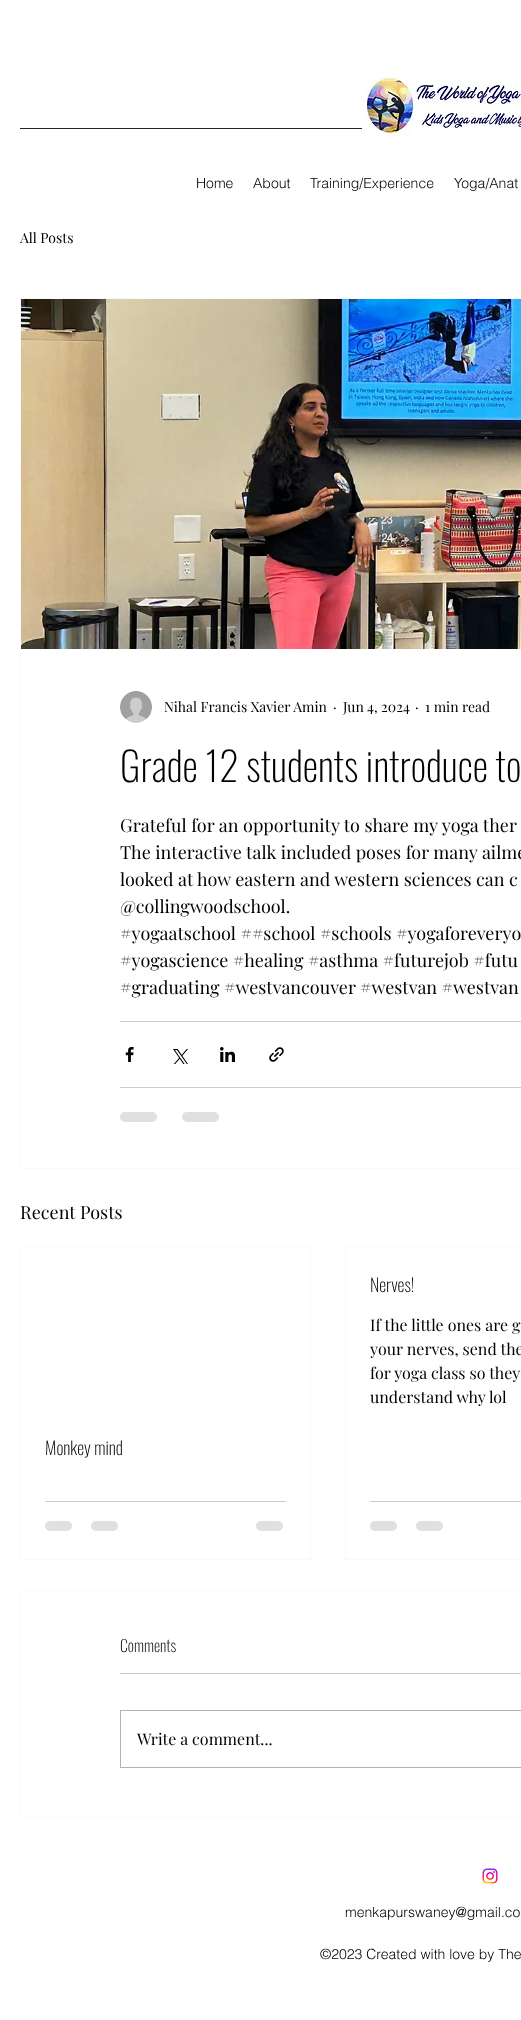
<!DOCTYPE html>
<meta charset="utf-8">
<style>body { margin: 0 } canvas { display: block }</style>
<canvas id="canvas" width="521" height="2020"></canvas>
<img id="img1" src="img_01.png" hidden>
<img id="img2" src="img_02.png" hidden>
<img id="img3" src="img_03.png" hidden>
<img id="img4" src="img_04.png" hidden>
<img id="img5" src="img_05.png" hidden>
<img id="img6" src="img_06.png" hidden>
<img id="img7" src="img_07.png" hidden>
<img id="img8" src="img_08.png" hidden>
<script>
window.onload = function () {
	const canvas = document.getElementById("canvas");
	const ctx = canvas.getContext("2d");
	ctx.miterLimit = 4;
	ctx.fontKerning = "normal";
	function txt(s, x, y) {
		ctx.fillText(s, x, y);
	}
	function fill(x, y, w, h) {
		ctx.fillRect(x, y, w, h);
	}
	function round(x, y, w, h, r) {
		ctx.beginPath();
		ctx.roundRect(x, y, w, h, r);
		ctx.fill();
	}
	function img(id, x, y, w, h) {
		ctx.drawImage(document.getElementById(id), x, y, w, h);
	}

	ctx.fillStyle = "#FFFFFF";
	fill(0, 0, 521, 2020);
	ctx.fillStyle = "#262626";
	fill(20, 128, 342, 1);
	img("img1", 362, 73, 159, 64);
	ctx.strokeStyle = "#F9F9F9";
	ctx.strokeRect(20.5, 298.5, 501, 870);
	img("img2", 21, 299, 500, 350);
	img("img3", 120, 691, 32, 32);
	ctx.fillStyle = "#CCCCCC";
	fill(120, 1021, 401, 1);
	img("img4", 125, 1047, 9, 15);
	img("img5", 173, 1049, 15, 15);
	img("img6", 220, 1047, 15, 15);
	img("img7", 269, 1047, 15, 15);
	fill(120, 1087, 401, 1);
	ctx.fillStyle = "#E0E0E0";
	round(120, 1112, 37, 10, 5);
	round(182, 1112, 37, 10, 5);
	ctx.strokeRect(345.5, 1246.5, 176, 313);
	ctx.fillStyle = "#CCCCCC";
	fill(370, 1501, 151, 1);
	ctx.fillStyle = "#E0E0E0";
	round(370, 1521, 27, 10, 5);
	round(416, 1521, 27, 10, 5);
	ctx.strokeRect(20.5, 1246.5, 290, 313);
	ctx.fillStyle = "#CCCCCC";
	fill(45, 1501, 241, 1);
	ctx.fillStyle = "#E0E0E0";
	round(45, 1521, 27, 10, 5);
	round(91, 1521, 27, 10, 5);
	round(256, 1521, 27, 10, 5);
	ctx.strokeRect(20.5, 1590.5, 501, 227);
	ctx.fillStyle = "#CCCCCC";
	fill(120, 1673, 401, 1);
	ctx.strokeStyle = "#B3B3B3";
	ctx.strokeRect(120.5, 1710.5, 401, 57);
	img("img8", 482, 1868, 16, 16);
	ctx.font = "300 14px helvetica";
	ctx.fillStyle = "#000000";
	txt("Home", 196, 188);
	txt("About", 253, 188);
	txt("Training/Experience", 310, 188);
	txt("Yoga/Anat", 454, 188);
	ctx.font = "14px Playfair Display";
	txt("All Posts", 20, 243);
	txt("Nihal Francis Xavier Amin", 164, 712);
	txt("·", 333, 712);
	txt("Jun 4, 2024", 343, 712);
	txt("·", 415, 712);
	txt("1 min read", 425, 712);
	ctx.font = "200 40px Oswald";
	txt("Grade 12 students introduce to", 120, 782);
	ctx.font = "18px Playfair Display";
	txt("Grateful for an opportunity to share my yoga ther", 120, 832);
	txt("The interactive talk included poses for many ailme", 120, 859);
	txt("looked at how eastern and western sciences can c", 120, 886);
	txt("@collingwoodschool.", 120, 913);
	txt("#yogaatschool ##school #schools #yogaforeveryo", 120, 940);
	txt("#yogascience #healing #asthma #futurejob #futu", 120, 967);
	txt("#graduating #westvancouver", 120, 994);
	txt("#westvan #westvan", 360, 994);
	txt("Recent Posts", 20, 1219);
	ctx.font = "200 18px Oswald";
	txt("Nerves!", 370, 1292);
	ctx.font = "16px Playfair Display";
	txt("If the little ones are g", 370, 1331);
	txt("your nerves, send the", 370, 1355);
	txt("for yoga class so they", 370, 1379);
	txt("understand why lol", 370, 1403);
	ctx.font = "200 18px Oswald";
	txt("Monkey mind", 45, 1455);
	ctx.font = "200 16px Oswald";
	txt("Comments", 120, 1652);
	ctx.font = "16px Playfair Display";
	txt("Write a comment...", 137, 1745);
	ctx.font = "300 14px helvetica";
	txt("menkapurswaney@gmail.co", 345, 1917);
	txt("©2023 Created with love by The", 320, 1959);
};
</script>
